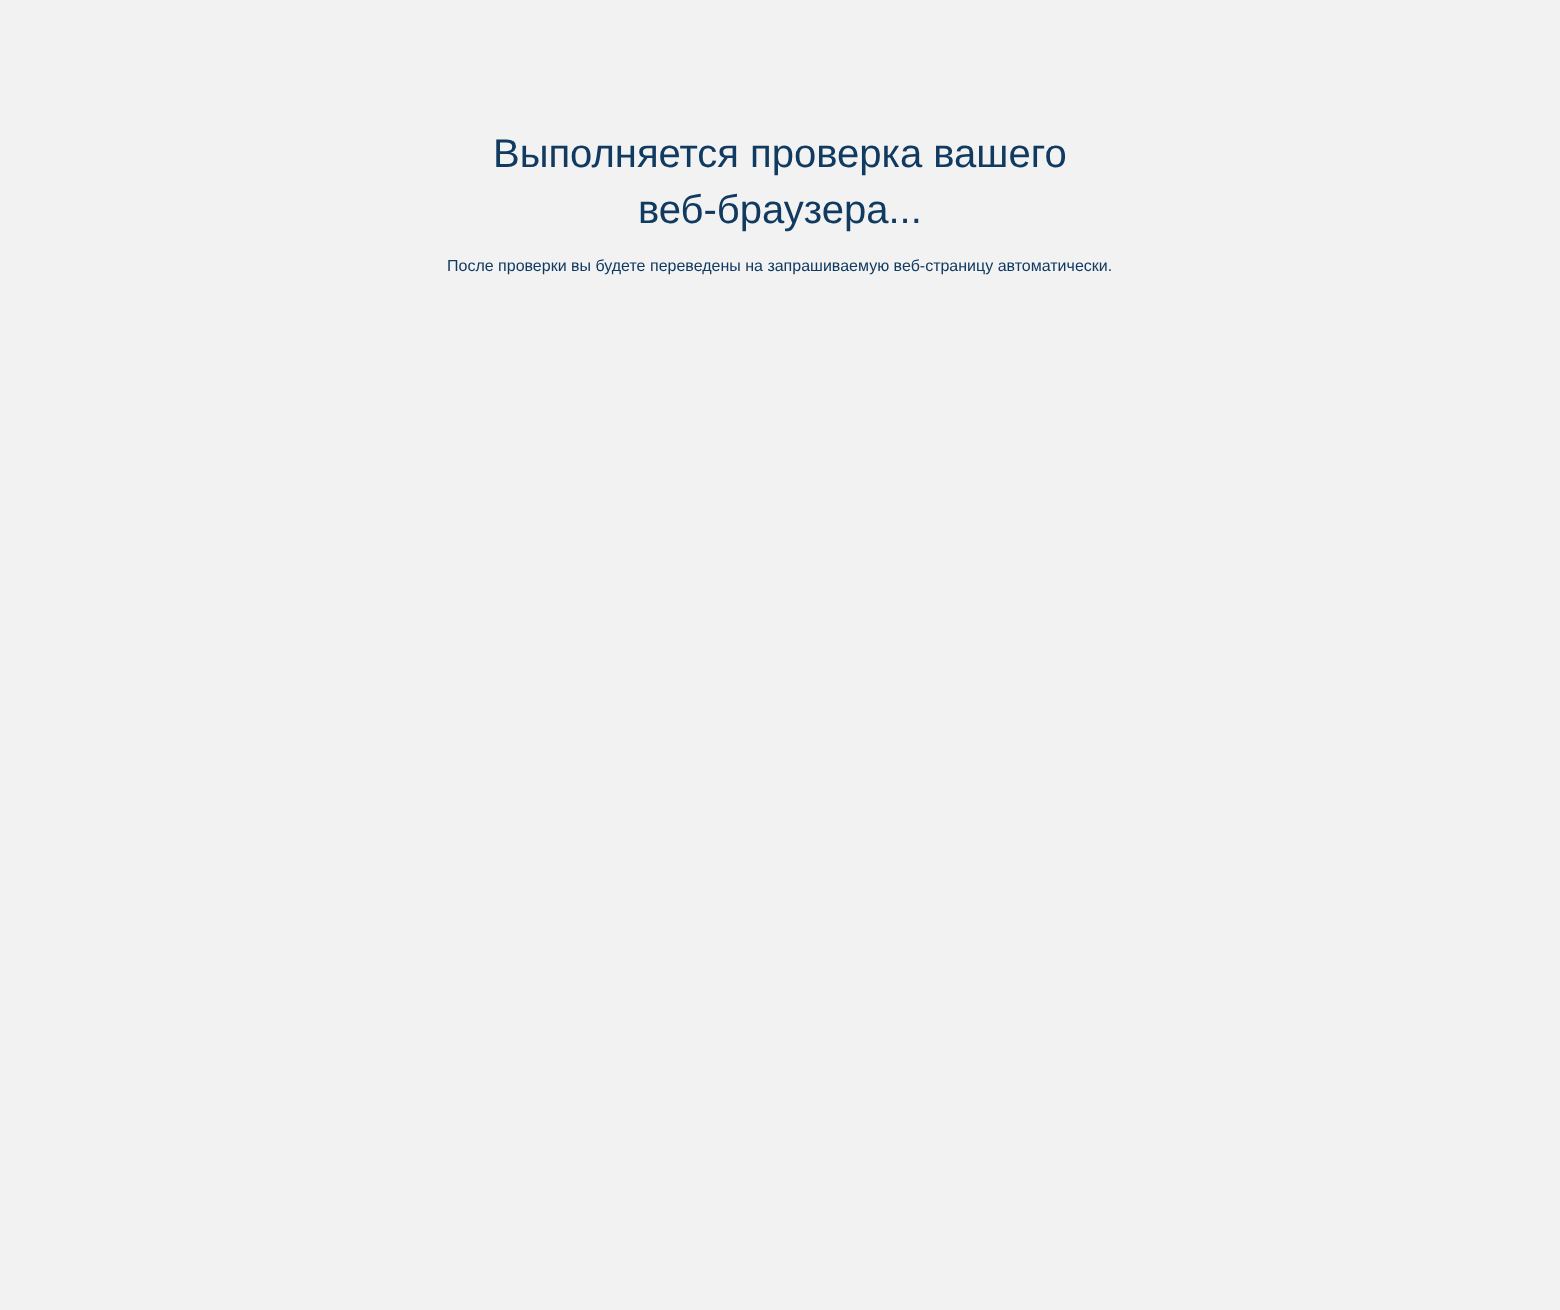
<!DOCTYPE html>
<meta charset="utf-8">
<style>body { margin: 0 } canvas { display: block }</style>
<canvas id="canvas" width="1560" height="1310"></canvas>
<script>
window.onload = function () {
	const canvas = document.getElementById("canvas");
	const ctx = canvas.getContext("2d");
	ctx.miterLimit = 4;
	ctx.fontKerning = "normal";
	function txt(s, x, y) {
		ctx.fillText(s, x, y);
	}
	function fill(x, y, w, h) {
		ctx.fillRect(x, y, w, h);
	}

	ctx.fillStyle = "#F2F2F2";
	fill(0, 0, 1560, 1310);
	ctx.font = "40px Liberation Sans";
	ctx.fillStyle = "#113A60";
	txt("Выполняется проверка вашего", 493, 167);
	txt("веб-браузера...", 638, 223);
	ctx.font = "16px Liberation Sans";
	txt("После проверки вы будете переведены на запрашиваемую веб-страницу автоматически.", 447, 271);
};
</script>
